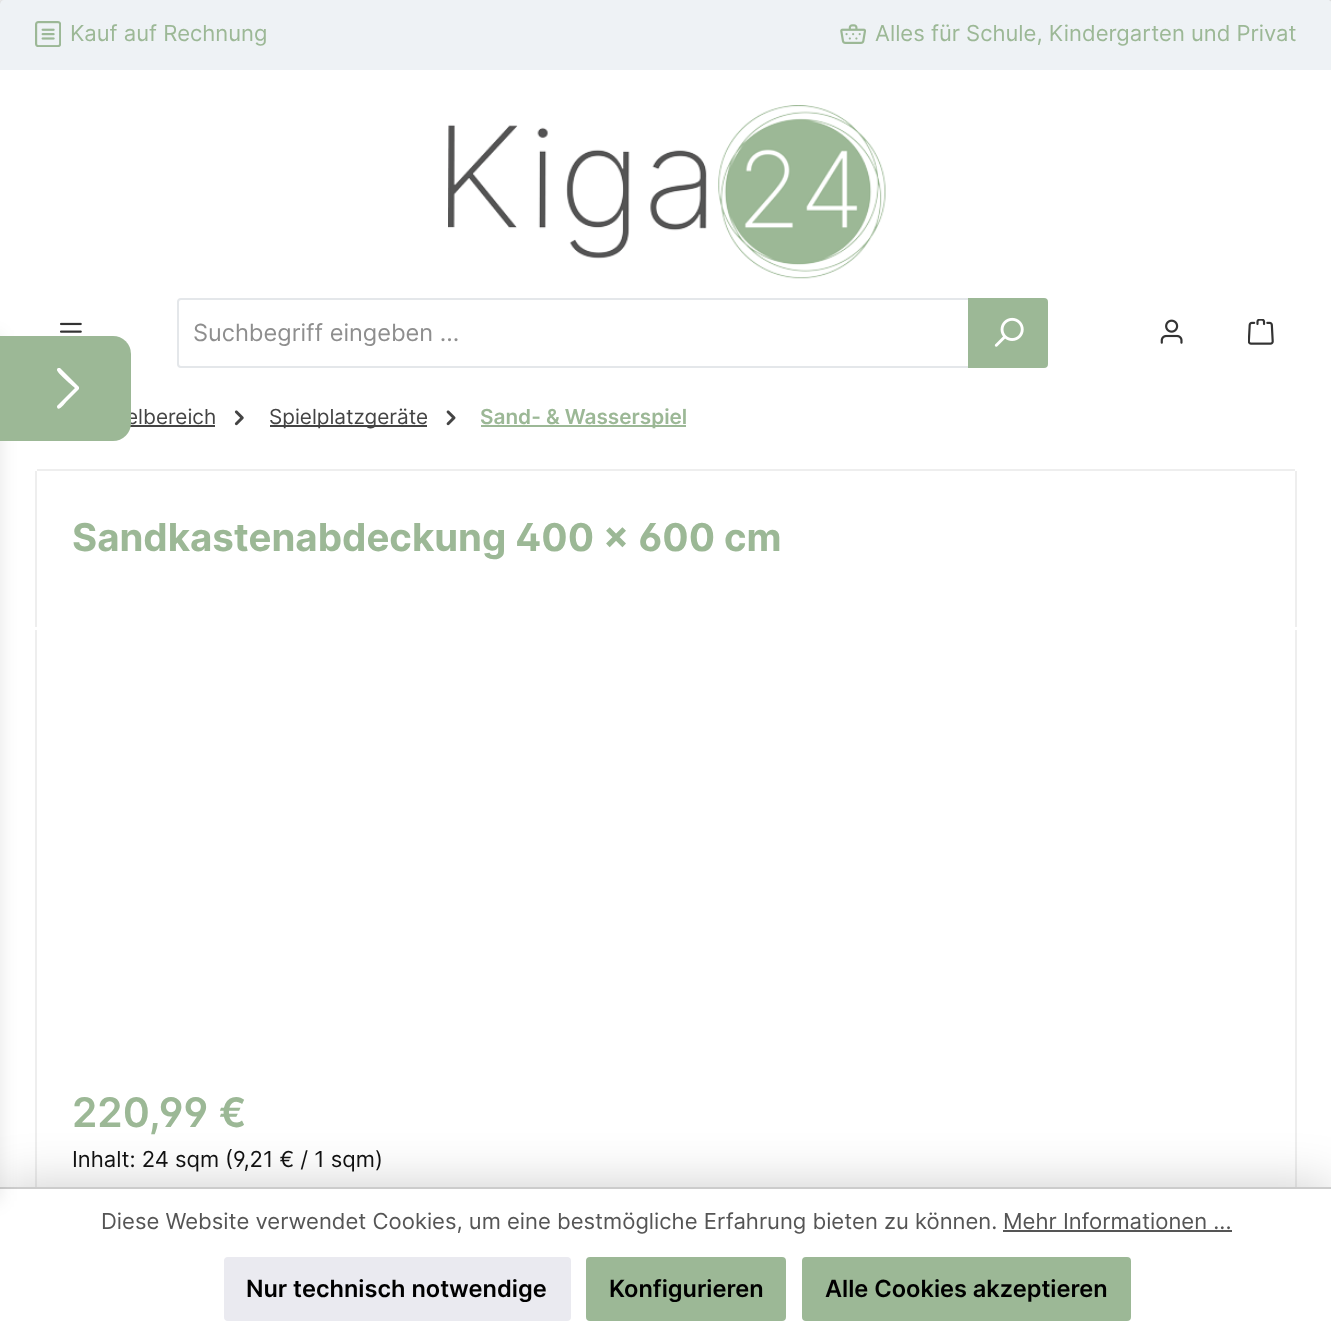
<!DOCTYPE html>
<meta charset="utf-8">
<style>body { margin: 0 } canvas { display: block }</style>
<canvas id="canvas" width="1331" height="1344"></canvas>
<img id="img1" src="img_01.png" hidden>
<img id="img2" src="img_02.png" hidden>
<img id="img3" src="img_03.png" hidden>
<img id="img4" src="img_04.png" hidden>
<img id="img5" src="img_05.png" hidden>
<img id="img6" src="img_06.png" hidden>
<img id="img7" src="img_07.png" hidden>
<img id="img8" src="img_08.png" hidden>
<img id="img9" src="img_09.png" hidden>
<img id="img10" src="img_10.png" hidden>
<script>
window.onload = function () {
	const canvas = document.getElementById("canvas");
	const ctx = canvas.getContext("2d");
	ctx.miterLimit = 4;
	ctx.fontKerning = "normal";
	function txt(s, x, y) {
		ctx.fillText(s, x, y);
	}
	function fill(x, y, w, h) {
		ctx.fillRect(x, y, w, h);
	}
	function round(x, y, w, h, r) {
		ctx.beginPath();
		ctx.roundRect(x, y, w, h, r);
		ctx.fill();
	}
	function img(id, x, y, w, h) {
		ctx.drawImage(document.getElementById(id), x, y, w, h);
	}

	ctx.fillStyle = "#FFFFFF";
	fill(0, 0, 1331, 1344);
	img("img1", 0, 0, 1331, 4);
	ctx.fillStyle = "rgba(0, 0, 0, 0.3)";
	ctx.filter = "blur(9px)";
	ctx.beginPath();
	ctx.roundRect(0, 0, 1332, 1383, 12);
	ctx.fill();
	ctx.filter = "none";
	ctx.fillStyle = "#FFFFFF";
	round(0, 0, 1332, 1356, 12);
	ctx.fillStyle = "#EEEEEE";
	fill(1295, 630, 2, 557);
	fill(35, 630, 2, 557);
	ctx.fillStyle = "rgba(0, 0, 0, 0.2)";
	ctx.filter = "blur(26px)";
	ctx.beginPath();
	ctx.rect(0, 1187, 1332, 157);
	ctx.fill();
	ctx.filter = "none";
	ctx.fillStyle = "#FFFFFF";
	fill(0, 1189, 1331, 155);
	ctx.fillStyle = "#CCCCCC";
	fill(0, 1187, 1331, 2);
	ctx.fillStyle = "rgba(0, 0, 0, 0.1)";
	ctx.filter = "blur(9px)";
	ctx.beginPath();
	ctx.rect(-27, 336, 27, 865);
	ctx.fill();
	ctx.filter = "none";
	ctx.fillStyle = "#EEF2F5";
	ctx.beginPath();
	ctx.moveTo(4, 0);
	ctx.lineTo(1328, 0);
	ctx.bezierCurveTo(1330, 0, 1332, 2, 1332, 4);
	ctx.lineTo(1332, 70);
	ctx.lineTo(0, 70);
	ctx.lineTo(0, 4);
	ctx.bezierCurveTo(0, 2, 2, 0, 4, 0);
	ctx.closePath();
	ctx.fill();
	img("img2", 35, 21, 26, 26);
	img("img3", 840, 24, 26, 20);
	img("img4", 448, 105, 438, 174);
	img("img5", 60, 322, 22, 11);
	ctx.beginPath();
	ctx.roundRect(178, 299, 791, 68, [3, 0, 0, 3]);
	ctx.strokeStyle = "#E4E7EA";
	ctx.lineWidth = 2;
	ctx.stroke();
	ctx.fillStyle = "#9CB896";
	ctx.beginPath();
	ctx.roundRect(969, 299, 78, 68, [0, 3, 3, 0]);
	ctx.fill();
	ctx.strokeStyle = "#9CB896";
	ctx.stroke();
	img("img6", 994, 317, 30, 30);
	img("img7", 1160, 319, 23, 25);
	img("img8", 1248, 319, 26, 26);
	ctx.fillStyle = "#444444";
	fill(130, 425, 85, 2);
	img("img9", 234, 410, 10, 16);
	fill(270, 425, 157, 2);
	img("img10", 446, 410, 10, 16);
	ctx.fillStyle = "#9CB896";
	fill(481, 425, 205, 2);
	ctx.fillStyle = "#EEEEEE";
	fill(37, 469, 1258, 2);
	fill(1295, 471, 2, 156);
	fill(35, 471, 2, 156);
	ctx.fillStyle = "#555555";
	fill(1003, 1230, 229, 2);
	ctx.fillStyle = "#EAEAF0";
	ctx.beginPath();
	ctx.roundRect(225, 1258, 345, 62, 3);
	ctx.fill();
	ctx.strokeStyle = "#EAEAF0";
	ctx.stroke();
	ctx.fillStyle = "#9CB896";
	ctx.beginPath();
	ctx.roundRect(587, 1258, 198, 62, 3);
	ctx.fill();
	ctx.strokeStyle = "#9CB896";
	ctx.stroke();
	ctx.beginPath();
	ctx.roundRect(803, 1258, 327, 62, 3);
	ctx.fill();
	ctx.stroke();
	ctx.font = "22.05px Inter";
	txt("Kauf auf Rechnung", 70, 41);
	txt("Alles für Schule, Kindergarten und Privat", 875, 41);
	ctx.font = "23.6px Inter";
	ctx.fillStyle = "#8E8E8E";
	txt("Suchbegriff eingeben ...", 193, 341);
	ctx.font = "20.75px Inter";
	ctx.fillStyle = "#444444";
	txt("elbereich", 126, 424);
	ctx.fillStyle = "#9CB896";
	ctx.beginPath();
	ctx.roundRect(0, 336, 131, 105, [0, 18, 18, 0]);
	ctx.fill();
	ctx.fillStyle = "#FFFFFF";
	ctx.beginPath();
	ctx.moveTo(60, 368);
	ctx.lineTo(79, 387);
	ctx.lineTo(79, 389);
	ctx.lineTo(67, 401);
	ctx.bezierCurveTo(66, 402, 57, 414, 57, 406);
	ctx.lineTo(75, 388);
	ctx.bezierCurveTo(74, 387, 57, 373, 57, 370);
	ctx.bezierCurveTo(57, 369, 57, 369, 58, 368);
	ctx.closePath();
	ctx.fill();
	ctx.fillStyle = "#444444";
	txt("Spielplatzgeräte", 269, 424);
	ctx.font = "600 20.75px Inter";
	ctx.fillStyle = "#9CB896";
	txt("Sand- & Wasserspiel", 480, 424);
	ctx.font = "bold 38.4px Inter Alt";
	txt("Sandkastenabdeckung 400 x 600 cm", 72, 551);
	ctx.font = "600 40.75px Inter Alt";
	txt("220,99 €", 72, 1127);
	ctx.font = "22.05px Inter";
	ctx.fillStyle = "#111111";
	txt("Inhalt: 24 sqm", 72, 1167);
	ctx.font = "22.05px Inter Alt";
	txt("(9,21 € / 1 sqm)", 225, 1167);
	ctx.font = "22.05px Inter";
	ctx.fillStyle = "#555555";
	txt("Diese Website verwendet Cookies, um eine bestmögliche Erfahrung bieten zu können.", 101, 1229);
	txt("Mehr Informationen ...", 1003, 1229);
	ctx.font = "600 23.6px Inter";
	ctx.fillStyle = "#000000";
	txt("Nur technisch notwendige", 246, 1297);
	txt("Konfigurieren", 609, 1297);
	txt("Alle Cookies akzeptieren", 825, 1297);
};
</script>
